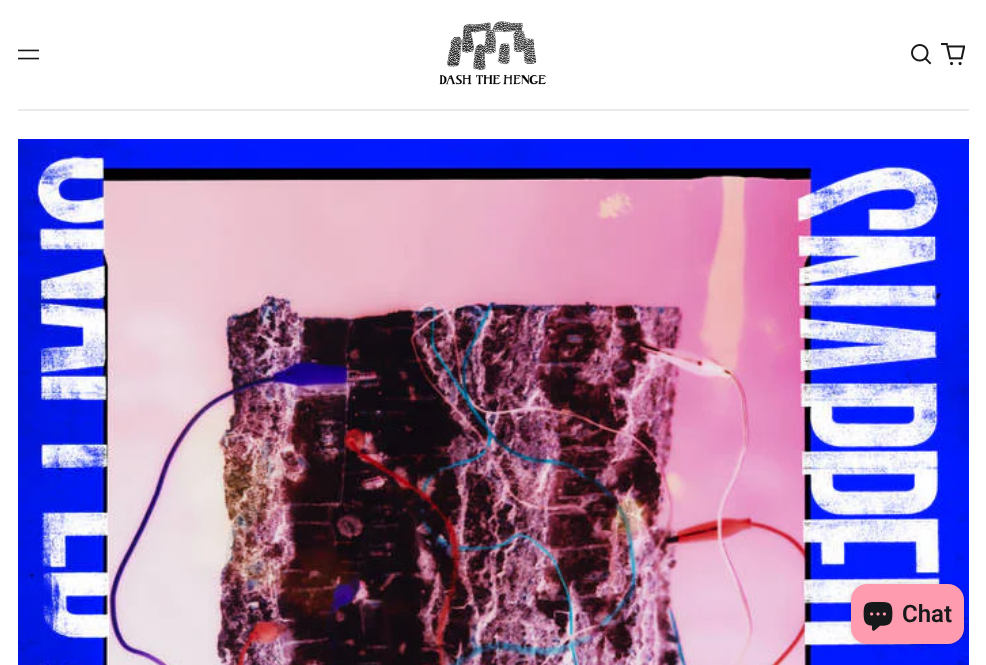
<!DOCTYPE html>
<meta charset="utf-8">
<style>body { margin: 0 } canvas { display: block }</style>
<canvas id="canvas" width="986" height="665"></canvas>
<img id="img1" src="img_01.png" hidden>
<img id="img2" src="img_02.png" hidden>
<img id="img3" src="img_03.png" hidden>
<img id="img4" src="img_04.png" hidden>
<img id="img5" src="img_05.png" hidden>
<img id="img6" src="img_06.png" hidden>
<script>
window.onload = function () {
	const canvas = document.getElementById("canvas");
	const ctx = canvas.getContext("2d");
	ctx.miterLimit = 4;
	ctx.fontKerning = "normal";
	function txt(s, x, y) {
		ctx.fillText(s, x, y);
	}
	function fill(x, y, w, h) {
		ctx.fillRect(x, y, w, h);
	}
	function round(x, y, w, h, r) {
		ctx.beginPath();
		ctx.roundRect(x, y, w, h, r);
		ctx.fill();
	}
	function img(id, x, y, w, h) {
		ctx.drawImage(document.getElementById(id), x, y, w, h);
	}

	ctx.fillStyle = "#FFFFFF";
	fill(0, 0, 986, 665);
	ctx.fillStyle = "#EBEBEB";
	fill(18, 109, 951, 2);
	img("img1", 18, 49, 21, 11);
	img("img2", 439, 21, 107, 64);
	img("img3", 911, 44, 21, 21);
	img("img4", 941, 43, 24, 23);
	img("img5", 18, 139, 951, 526);
	ctx.fillStyle = "rgba(0, 0, 0, 0.15)";
	ctx.filter = "blur(2.5px)";
	ctx.beginPath();
	ctx.roundRect(851, 584, 113, 60, 16);
	ctx.fill();
	ctx.filter = "none";
	ctx.fillStyle = "#FF9BAF";
	round(851, 584, 113, 60, 16);
	img("img6", 863, 602, 30, 29);
	ctx.font = "600 24px Roboto";
	ctx.fillStyle = "#161819";
	txt("Chat", 902, 622);
};
</script>
